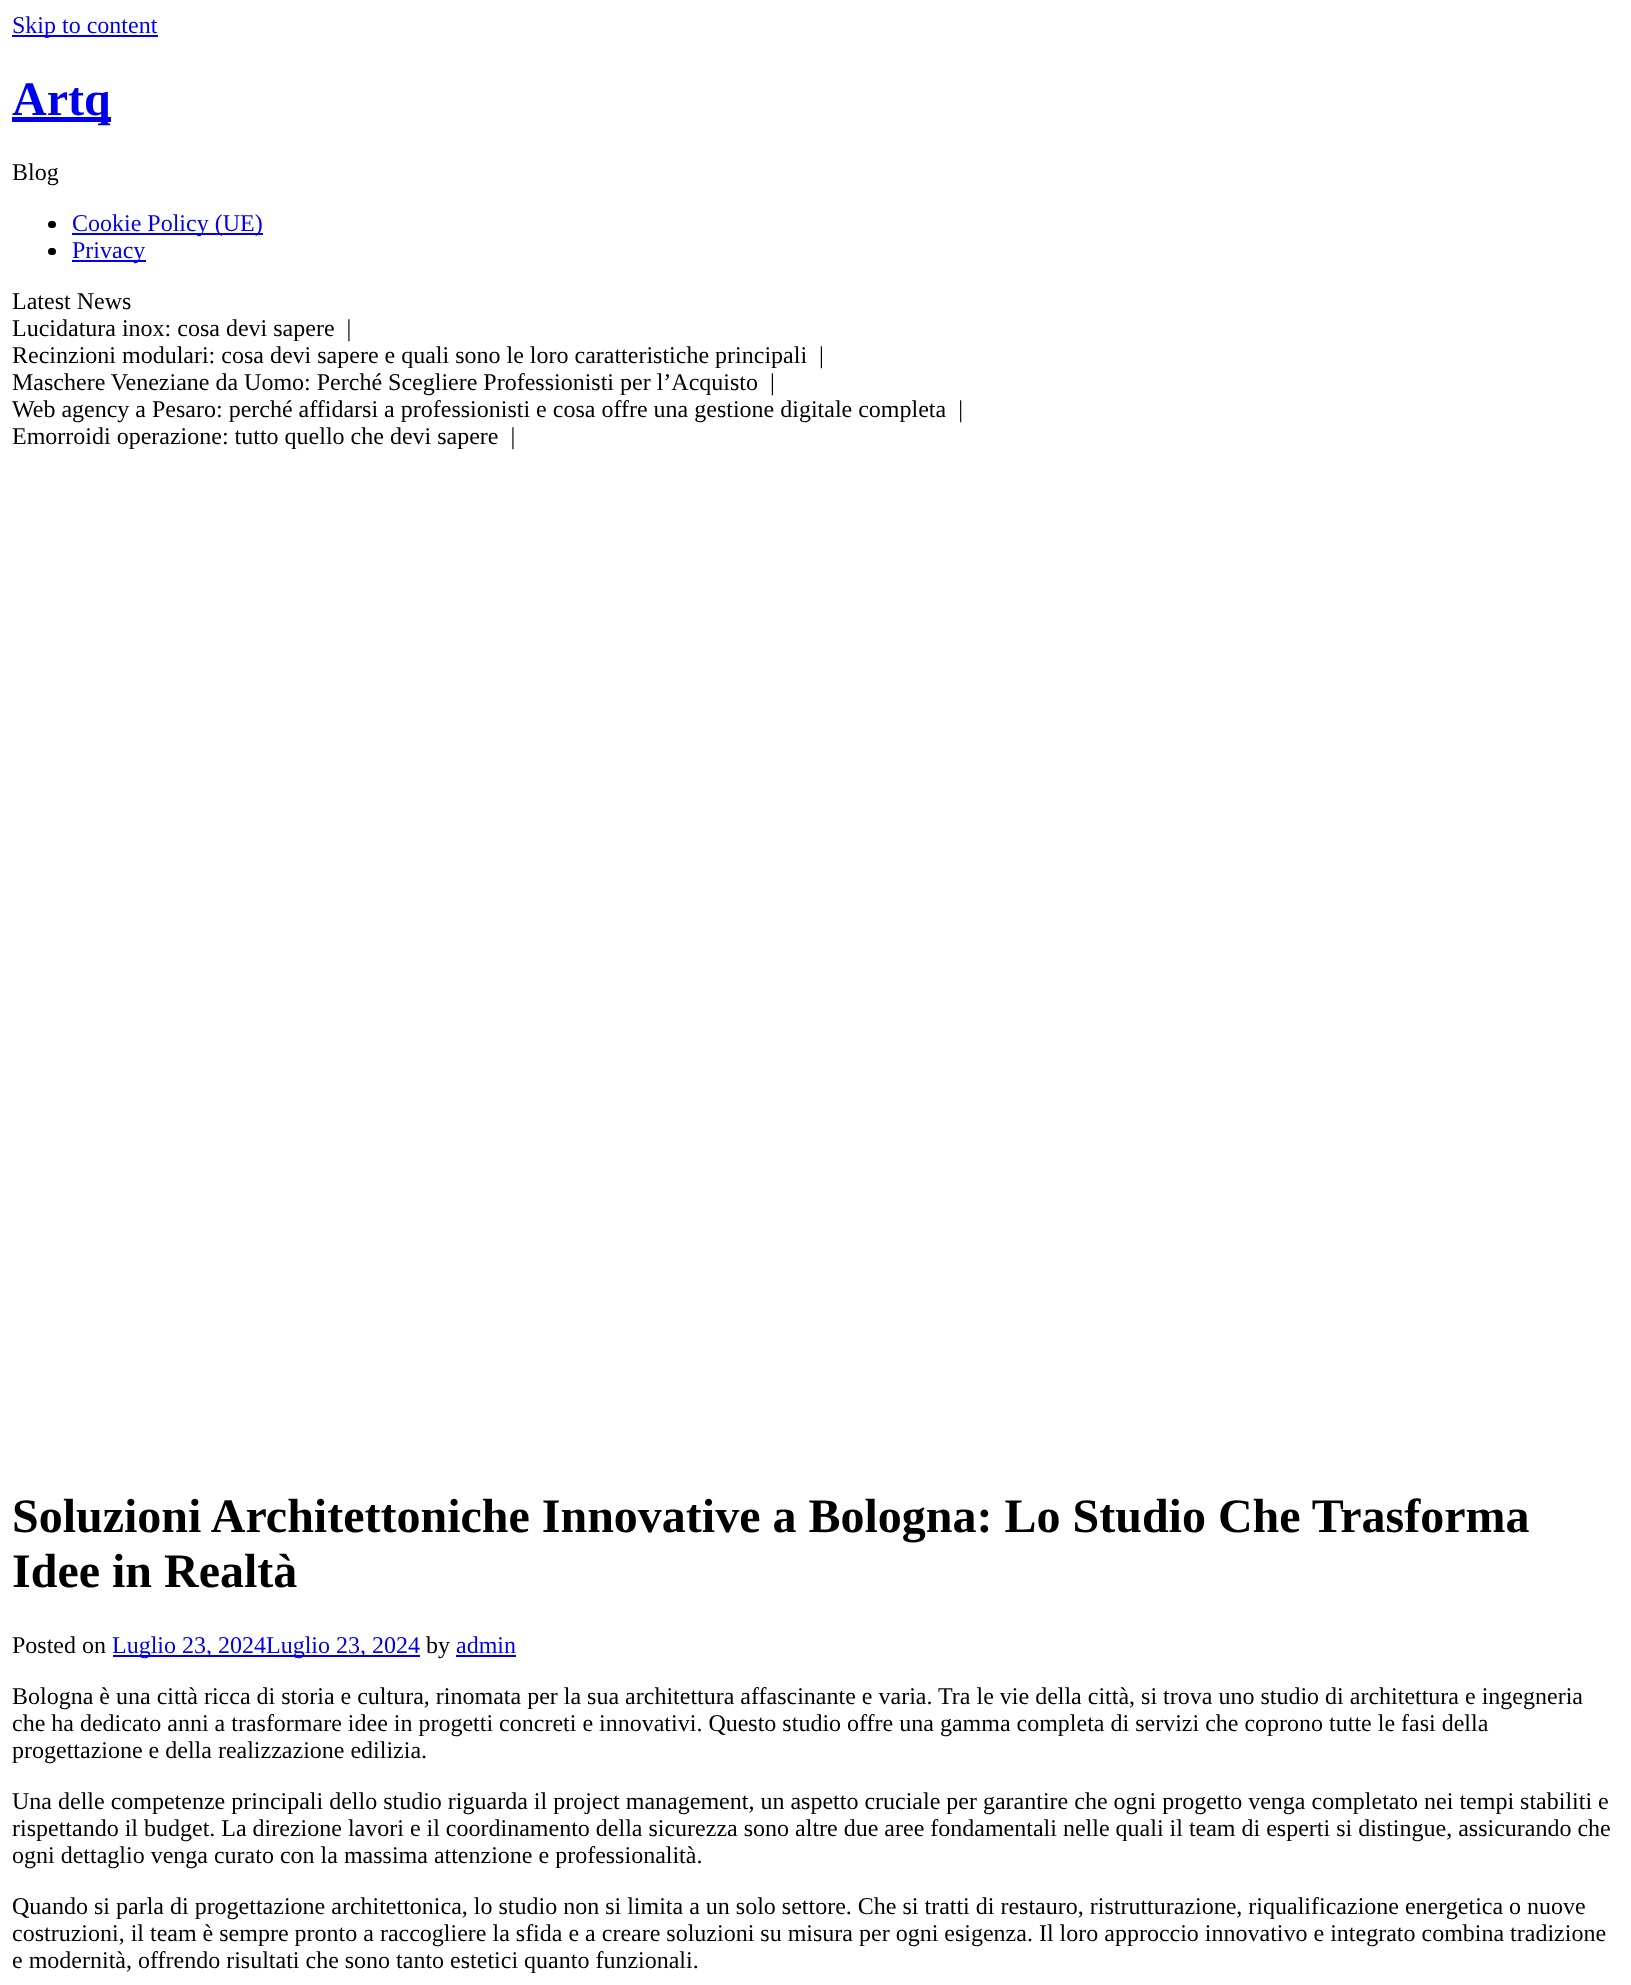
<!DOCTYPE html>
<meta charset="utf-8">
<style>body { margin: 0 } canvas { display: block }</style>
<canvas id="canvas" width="1631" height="1985"></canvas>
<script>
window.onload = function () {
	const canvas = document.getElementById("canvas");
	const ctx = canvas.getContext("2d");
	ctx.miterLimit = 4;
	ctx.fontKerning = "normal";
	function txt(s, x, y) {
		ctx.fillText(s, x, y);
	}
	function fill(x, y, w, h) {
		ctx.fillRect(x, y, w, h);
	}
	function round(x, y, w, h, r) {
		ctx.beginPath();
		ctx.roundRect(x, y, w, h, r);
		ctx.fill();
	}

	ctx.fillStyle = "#FFFFFF";
	fill(0, 0, 1631, 1985);
	ctx.fillStyle = "#0000EE";
	fill(12, 35, 146, 2);
	fill(12, 117, 99, 5);
	ctx.fillStyle = "#000000";
	round(48, 221, 8, 7, 3.5);
	ctx.fillStyle = "#0000EE";
	fill(72, 233, 191, 2);
	ctx.fillStyle = "#000000";
	round(48, 248, 8, 7, 3.5);
	ctx.fillStyle = "#0000EE";
	fill(72, 260, 74, 2);
	fill(113, 1655, 307, 2);
	fill(456, 1655, 60, 2);
	ctx.font = "24px Liberation Serif";
	txt("Skip to content", 12, 33);
	ctx.font = "bold 48px Liberation Serif";
	txt("Artq", 12, 115);
	ctx.font = "24px Liberation Serif";
	ctx.fillStyle = "#000000";
	txt("Blog", 12, 180);
	ctx.fillStyle = "#0000EE";
	txt("Cookie Policy (UE)", 72, 231);
	txt("Privacy", 72, 258);
	ctx.fillStyle = "#000000";
	txt("Latest News", 12, 309);
	txt("Lucidatura inox: cosa devi sapere  |", 12, 336);
	txt("Recinzioni modulari: cosa devi sapere e quali sono le loro caratteristiche principali  |", 12, 363);
	txt("Maschere Veneziane da Uomo: Perché Scegliere Professionisti per l’Acquisto  |", 12, 390);
	txt("Web agency a Pesaro: perché affidarsi a professionisti e cosa offre una gestione digitale completa  |", 12, 417);
	txt("Emorroidi operazione: tutto quello che devi sapere  |", 12, 444);
	ctx.font = "bold 48px Liberation Serif";
	txt("Soluzioni Architettoniche Innovative a Bologna: Lo Studio Che Trasforma", 12, 1532);
	txt("Idee in Realtà", 12, 1587);
	ctx.font = "24px Liberation Serif";
	txt("Posted on", 12, 1653);
	ctx.fillStyle = "#0000EE";
	txt("Luglio 23, 2024Luglio 23, 2024", 112, 1653);
	ctx.fillStyle = "#000000";
	txt("by", 426, 1653);
	ctx.fillStyle = "#0000EE";
	txt("admin", 456, 1653);
	ctx.fillStyle = "#000000";
	txt("Bologna è una città ricca di storia e cultura, rinomata per la sua architettura affascinante e varia. Tra le vie della città, si trova uno studio di architettura e ingegneria", 12, 1704);
	txt("che ha dedicato anni a trasformare idee in progetti concreti e innovativi. Questo studio offre una gamma completa di servizi che coprono tutte le fasi della", 12, 1731);
	txt("progettazione e della realizzazione edilizia.", 12, 1758);
	txt("Una delle competenze principali dello studio riguarda il project management, un aspetto cruciale per garantire che ogni progetto venga completato nei tempi stabiliti e", 12, 1809);
	txt("rispettando il budget. La direzione lavori e il coordinamento della sicurezza sono altre due aree fondamentali nelle quali il team di esperti si distingue, assicurando che", 12, 1836);
	txt("ogni dettaglio venga curato con la massima attenzione e professionalità.", 12, 1863);
	txt("Quando si parla di progettazione architettonica, lo studio non si limita a un solo settore. Che si tratti di restauro, ristrutturazione, riqualificazione energetica o nuove", 12, 1914);
	txt("costruzioni, il team è sempre pronto a raccogliere la sfida e a creare soluzioni su misura per ogni esigenza. Il loro approccio innovativo e integrato combina tradizione", 12, 1941);
	txt("e modernità, offrendo risultati che sono tanto estetici quanto funzionali.", 12, 1968);
};
</script>
